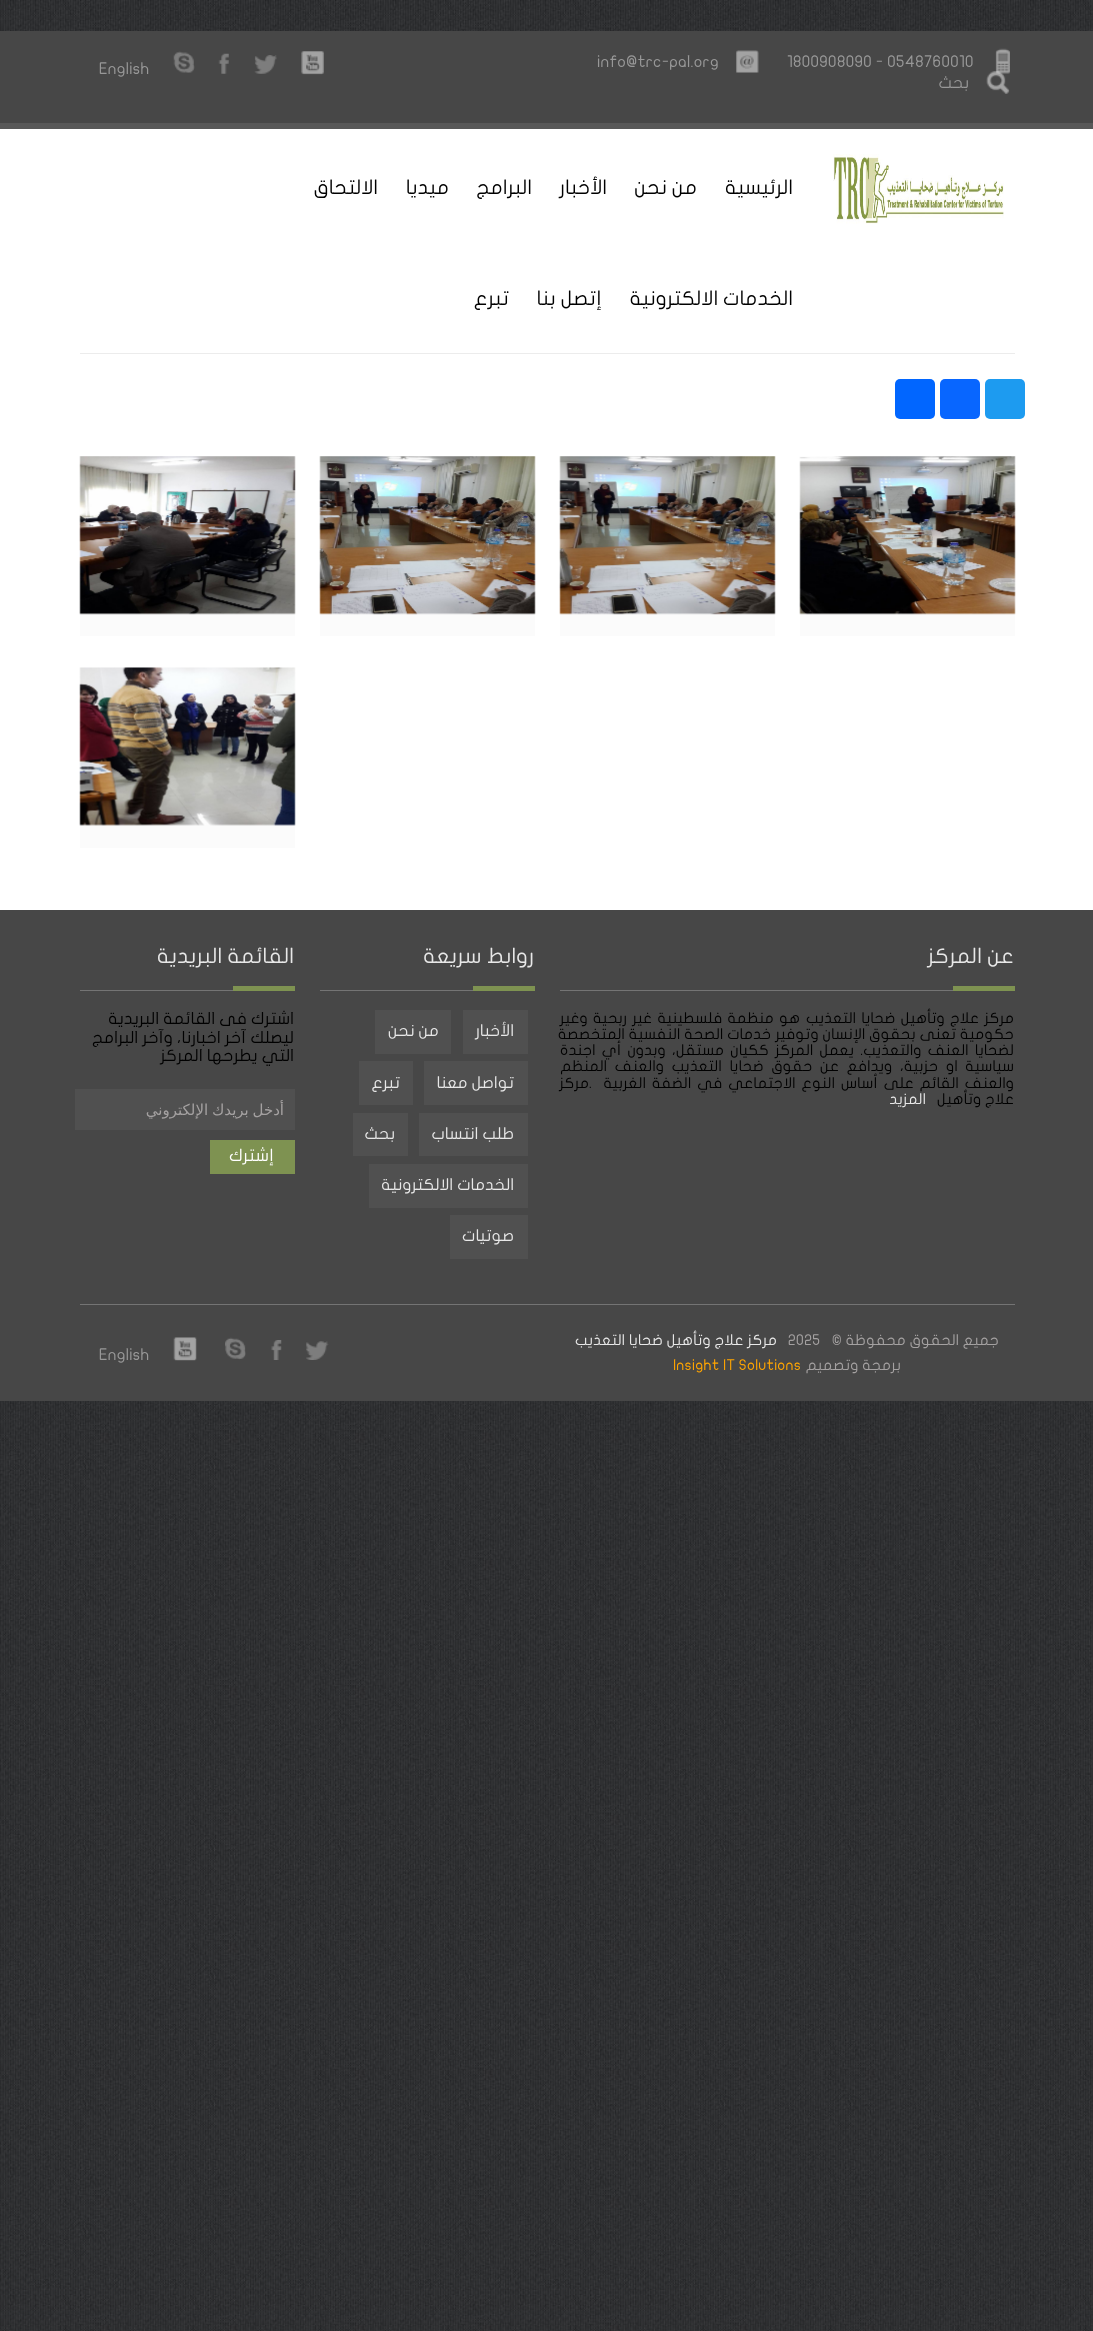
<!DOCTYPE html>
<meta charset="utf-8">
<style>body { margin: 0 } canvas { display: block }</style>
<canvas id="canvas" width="1093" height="2331"></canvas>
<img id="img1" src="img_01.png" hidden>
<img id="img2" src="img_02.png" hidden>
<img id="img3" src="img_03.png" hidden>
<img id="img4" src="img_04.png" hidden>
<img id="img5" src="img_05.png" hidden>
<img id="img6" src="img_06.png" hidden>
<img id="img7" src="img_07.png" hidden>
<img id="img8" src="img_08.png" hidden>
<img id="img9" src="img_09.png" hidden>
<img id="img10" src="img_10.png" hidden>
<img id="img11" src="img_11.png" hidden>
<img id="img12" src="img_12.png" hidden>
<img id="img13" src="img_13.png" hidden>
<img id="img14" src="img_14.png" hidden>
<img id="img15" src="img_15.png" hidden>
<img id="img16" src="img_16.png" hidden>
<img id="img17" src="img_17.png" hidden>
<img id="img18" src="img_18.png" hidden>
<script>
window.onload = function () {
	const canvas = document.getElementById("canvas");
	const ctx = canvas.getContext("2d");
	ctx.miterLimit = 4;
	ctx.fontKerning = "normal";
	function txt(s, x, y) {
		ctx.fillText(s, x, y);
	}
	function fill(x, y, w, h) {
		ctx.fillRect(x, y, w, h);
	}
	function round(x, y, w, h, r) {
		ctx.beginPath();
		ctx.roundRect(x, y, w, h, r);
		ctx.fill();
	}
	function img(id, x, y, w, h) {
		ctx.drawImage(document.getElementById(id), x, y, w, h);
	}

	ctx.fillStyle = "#FFFFFF";
	fill(0, 0, 1093, 2331);
	img("img1", 0, 0, 1093, 2331);
	fill(0, 129, 1093, 781);
	ctx.fillStyle = "#474747";
	fill(0, 31, 1093, 92);
	img("img2", 995, 48, 15, 26);
	img("img3", 736, 50, 23, 23);
	img("img4", 986, 71, 24, 23);
	img("img5", 301, 51, 23, 24);
	img("img6", 254, 55, 23, 19);
	img("img7", 218, 53, 11, 21);
	img("img8", 173, 51, 22, 22);
	ctx.fillStyle = "#585858";
	fill(0, 123, 1093, 6);
	img("img9", 833, 154, 171, 70);
	ctx.fillStyle = "#ECECEC";
	fill(80, 353, 935, 1);
	ctx.fillStyle = "#1D9BF0";
	round(985, 379, 40, 40, 5);
	ctx.fillStyle = "#0866FF";
	round(940, 379, 40, 40, 5);
	ctx.fillStyle = "#0166FF";
	round(895, 379, 40, 40, 5);
	ctx.fillStyle = "#FBFBFB";
	fill(800, 456, 215, 180);
	img("img10", 799, 456, 217, 159);
	fill(560, 456, 215, 180);
	img("img11", 559, 456, 217, 159);
	fill(320, 456, 215, 180);
	img("img12", 319, 456, 217, 159);
	fill(80, 456, 215, 180);
	img("img13", 79, 456, 217, 159);
	fill(80, 668, 215, 180);
	img("img14", 79, 667, 217, 159);
	ctx.fillStyle = "#474747";
	fill(0, 910, 1093, 491);
	ctx.fillStyle = "#747474";
	fill(560, 990, 393, 1);
	ctx.fillStyle = "#7E9251";
	fill(953, 986, 62, 5);
	ctx.fillStyle = "#747474";
	fill(320, 990, 153, 1);
	ctx.fillStyle = "#7E9251";
	fill(473, 986, 62, 5);
	ctx.fillStyle = "#505050";
	fill(463, 1010, 65, 44);
	fill(375, 1010, 76, 44);
	fill(424, 1061, 104, 44);
	fill(359, 1061, 54, 44);
	fill(419, 1113, 109, 43);
	fill(353, 1113, 55, 43);
	fill(369, 1164, 159, 44);
	fill(450, 1215, 78, 44);
	ctx.fillStyle = "#747474";
	fill(80, 990, 153, 1);
	ctx.fillStyle = "#7E9251";
	fill(233, 986, 62, 5);
	ctx.fillStyle = "#505050";
	fill(75, 1089, 220, 41);
	ctx.fillStyle = "#7E9251";
	fill(210, 1140, 85, 34);
	ctx.fillStyle = "#747474";
	fill(80, 1304, 935, 1);
	img("img15", 306, 1341, 23, 19);
	img("img16", 271, 1340, 11, 20);
	img("img17", 225, 1337, 21, 23);
	img("img18", 173, 1337, 24, 24);
	ctx.font = "16.25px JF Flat";
	ctx.fillStyle = "#989898";
	txt("1800908090 - 0548760010", 787, 67);
	txt("info@trc-pal.org", 597, 67);
	ctx.direction = "rtl";
	txt("بحث", 969, 88);
	ctx.direction = "ltr";
	txt("English", 99, 74);
	ctx.direction = "rtl";
	ctx.font = "20px JF Flat";
	ctx.fillStyle = "#000000";
	txt("الرئيسية", 793, 194);
	txt("من نحن", 697, 194);
	txt("الأخبار", 607, 194);
	txt("البرامج", 532, 194);
	txt("ميديا", 449, 194);
	txt("الالتحاق", 378, 194);
	txt("الخدمات الالكترونية", 793, 305);
	txt("إتصل بنا", 602, 305);
	txt("تبرع", 509, 305);
	ctx.font = "21.25px JF Flat";
	ctx.fillStyle = "#E8E8E8";
	txt("عن المركز", 1014, 963);
	ctx.wordSpacing = "1.5px";
	ctx.font = "15px JF Flat";
	ctx.fillStyle = "#000000";
	txt("مركز علاج وتأهيل ضحايا التعذيب", 1014, 1023);
	txt("هو منظمة فلسطينية غير ربحية وغير", 800, 1023);
	ctx.wordSpacing = "0.25px";
	txt("حكومية تعنى بحقوق الإنسان وتوفير خدمات الصحة النفسية المتخصصة", 1014, 1039);
	ctx.wordSpacing = "2.5px";
	txt("لضحايا العنف والتعذيب. يعمل المركز ككيان مستقل، وبدون أي اجندة", 1014, 1055);
	ctx.wordSpacing = "4px";
	txt("سياسية او حزبية، ويدافع عن حقوق ضحايا التعذيب والعنف المنظم", 1014, 1071);
	ctx.wordSpacing = "2.25px";
	txt("والعنف القائم على أساس النوع الاجتماعي في الضفة الغربية", 1014, 1088);
	ctx.wordSpacing = "0px";
	ctx.direction = "ltr";
	txt(".", 589, 1088);
	ctx.direction = "rtl";
	txt("مركز", 589, 1088);
	txt("علاج وتأهيل", 1014, 1104);
	ctx.fillStyle = "#E8E8E8";
	txt("المزيد", 926, 1104);
	ctx.font = "21.25px JF Flat";
	txt("روابط سريعة", 534, 963);
	ctx.font = "16.25px JF Flat";
	txt("الأخبار", 514, 1036);
	txt("من نحن", 439, 1036);
	txt("تواصل معنا", 514, 1088);
	txt("تبرع", 400, 1088);
	txt("طلب انتساب", 514, 1139);
	txt("بحث", 395, 1139);
	txt("الخدمات الالكترونية", 514, 1190);
	txt("صوتيات", 514, 1241);
	ctx.font = "21.25px JF Flat";
	txt("القائمة البريدية", 294, 963);
	ctx.font = "16.6px JF Flat";
	ctx.fillStyle = "#000000";
	txt("اشترك فى القائمة البريدية", 294, 1024);
	txt("ليصلك آخر اخبارنا، وآخر البرامج", 294, 1043);
	txt("التي يطرحها المركز", 294, 1061);
	ctx.save();
	ctx.beginPath();
	ctx.rect(85, 1099, 200, 21);
	ctx.clip();
	ctx.wordSpacing = "-1px";
	ctx.font = "15px DejaVu Sans";
	ctx.fillStyle = "#A4A1A1";
	txt("أدخل بريدك الإلكتروني", 284, 1115);
	ctx.restore();
	ctx.font = "17px JF Flat";
	ctx.fillStyle = "#FFFFFF";
	txt("إشترك", 274, 1161);
	ctx.font = "15px JF Flat";
	ctx.fillStyle = "#A4A1A1";
	txt("جميع الحقوق محفوظة ©", 999, 1345);
	ctx.direction = "ltr";
	txt("2025", 788, 1345);
	ctx.direction = "rtl";
	ctx.fillStyle = "#E8E8E8";
	txt("مركز علاج وتأهيل ضحايا التعذيب", 777, 1345);
	ctx.fillStyle = "#A4A1A1";
	txt("برمجة وتصميم", 901, 1370);
	ctx.direction = "ltr";
	ctx.fillStyle = "#FFA500";
	txt("Insight IT Solutions", 673, 1370);
	ctx.font = "16.25px JF Flat";
	ctx.fillStyle = "#989898";
	txt("English", 99, 1360);
};
</script>
